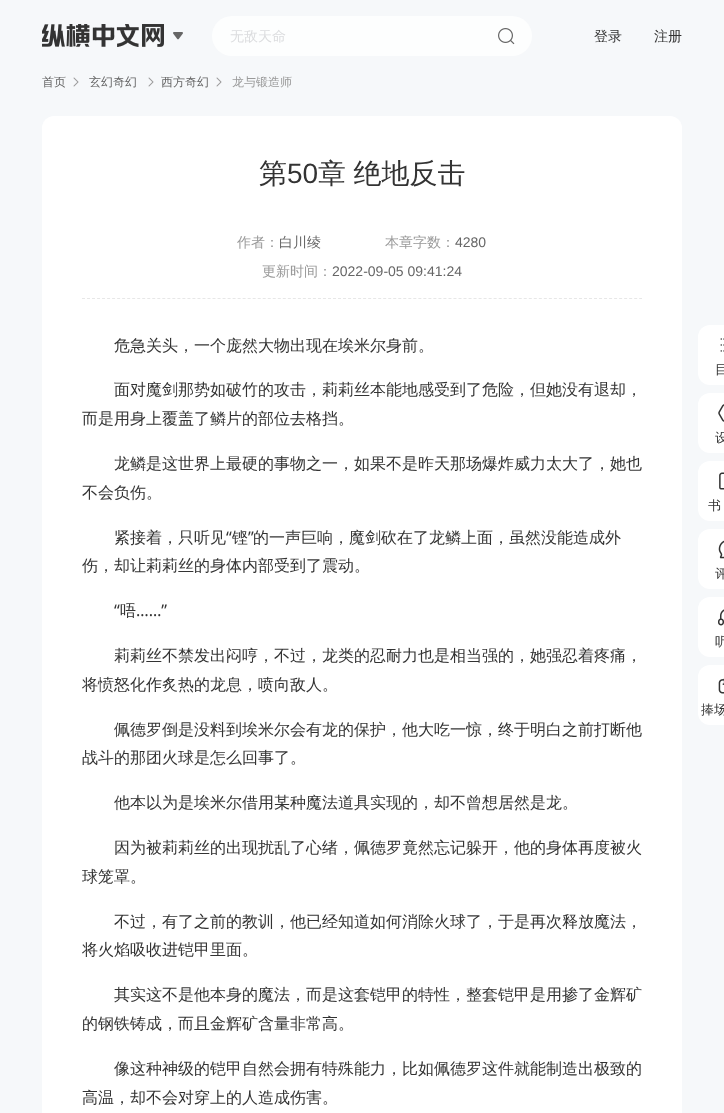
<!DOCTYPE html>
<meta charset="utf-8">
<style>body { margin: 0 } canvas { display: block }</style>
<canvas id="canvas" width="724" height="1113"></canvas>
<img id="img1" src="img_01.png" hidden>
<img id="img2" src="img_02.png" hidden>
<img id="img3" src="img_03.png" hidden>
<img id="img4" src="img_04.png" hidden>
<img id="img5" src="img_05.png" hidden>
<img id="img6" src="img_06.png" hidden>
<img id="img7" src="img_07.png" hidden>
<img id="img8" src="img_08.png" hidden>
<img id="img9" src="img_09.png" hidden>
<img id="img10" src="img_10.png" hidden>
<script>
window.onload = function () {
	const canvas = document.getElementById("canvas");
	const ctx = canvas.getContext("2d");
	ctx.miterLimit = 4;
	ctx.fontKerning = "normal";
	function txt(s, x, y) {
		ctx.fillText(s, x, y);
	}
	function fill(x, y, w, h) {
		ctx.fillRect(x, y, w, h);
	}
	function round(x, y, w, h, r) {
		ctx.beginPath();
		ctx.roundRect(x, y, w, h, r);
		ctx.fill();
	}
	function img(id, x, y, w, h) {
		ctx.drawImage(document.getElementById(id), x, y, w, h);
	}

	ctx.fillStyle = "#F6F8FA";
	fill(0, 0, 724, 1113);
	img("img1", 42, 24, 122, 23);
	img("img2", 173, 32, 10, 8);
	ctx.fillStyle = "#FDFEFE";
	round(212, 16, 320, 40, 20);
	img("img3", 498, 28, 17, 17);
	img("img4", 73, 77, 6, 10);
	img("img4", 148, 77, 6, 10);
	img("img4", 216, 77, 6, 10);
	ctx.fillStyle = "#FFFFFF";
	round(42, 116, 640, 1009, 12);
	ctx.beginPath();
	ctx.moveTo(82, 298.5);
	ctx.lineTo(642, 298.5);
	ctx.strokeStyle = "#E7E7E7";
	ctx.setLineDash([3, 2.02]);
	ctx.stroke();
	round(698, 325, 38, 60, 12);
	img("img5", 720, 338, 4, 14);
	round(698, 393, 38, 60, 12);
	img("img6", 718, 404, 6, 18);
	round(698, 461, 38, 60, 12);
	img("img7", 719, 472, 5, 18);
	round(698, 529, 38, 60, 12);
	img("img8", 718, 540, 6, 19);
	round(698, 597, 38, 60, 12);
	img("img9", 718, 609, 6, 17);
	round(698, 665, 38, 60, 12);
	img("img10", 718, 678, 6, 16);
	ctx.font = "500 14px WenQuanYi Zen Hei";
	ctx.fillStyle = "#DCDDDF";
	txt("无敌天命", 230, 41);
	ctx.fillStyle = "#333333";
	txt("登录", 594, 41);
	txt("注册", 654, 41);
	ctx.font = "500 12px WenQuanYi Zen Hei";
	ctx.fillStyle = "#666666";
	txt("首页", 42, 86);
	txt("玄幻奇幻", 89, 86);
	txt("西方奇幻", 161, 86);
	ctx.fillStyle = "#999999";
	txt("龙与锻造师", 232, 86);
	ctx.font = "500 28px WenQuanYi Zen Hei";
	ctx.fillStyle = "#333333";
	txt("第", 259, 183);
	ctx.font = "28px Liberation Sans";
	txt("50", 287, 183);
	ctx.wordSpacing = "-1px";
	ctx.font = "500 28px WenQuanYi Zen Hei";
	txt("章 绝地反击", 318, 183);
	ctx.wordSpacing = "0px";
	ctx.font = "500 14px WenQuanYi Zen Hei";
	ctx.fillStyle = "#999999";
	txt("作者：", 237, 247);
	ctx.fillStyle = "#666666";
	txt("白川绫", 279, 247);
	ctx.fillStyle = "#999999";
	txt("本章字数：", 385, 247);
	ctx.font = "14px Liberation Sans";
	ctx.fillStyle = "#666666";
	txt("4280", 455, 247);
	ctx.font = "500 14px WenQuanYi Zen Hei";
	ctx.fillStyle = "#999999";
	txt("更新时间：", 262, 276);
	ctx.font = "14px Liberation Sans";
	ctx.fillStyle = "#666666";
	txt("2022-09-05 09:41:24", 332, 276);
	ctx.font = "500 16px WenQuanYi Zen Hei";
	ctx.fillStyle = "#333333";
	txt("危急关头，一个庞然大物出现在埃米尔身前。", 114, 351);
	txt("面对魔剑那势如破竹的攻击，莉莉丝本能地感受到了危险，但她没有退却，", 114, 395);
	txt("而是用身上覆盖了鳞片的部位去格挡。", 82, 424);
	txt("龙鳞是这世界上最硬的事物之一，如果不是昨天那场爆炸威力太大了，她也", 114, 469);
	txt("不会负伤。", 82, 498);
	txt("紧接着，只听见", 114, 543);
	ctx.font = "16px Noto Sans";
	txt("“", 226, 543);
	ctx.font = "500 16px WenQuanYi Zen Hei";
	txt("铿", 232, 543);
	ctx.font = "16px Noto Sans";
	txt("”", 248, 543);
	ctx.font = "500 16px WenQuanYi Zen Hei";
	txt("的一声巨响，魔剑砍在了龙鳞上面，虽然没能造成外", 253, 543);
	txt("伤，却让莉莉丝的身体内部受到了震动。", 82, 571);
	ctx.font = "16px Noto Sans";
	txt("“", 114, 616);
	ctx.font = "500 16px WenQuanYi Zen Hei";
	txt("唔", 120, 616);
	ctx.font = "16px Noto Sans";
	txt("……”", 136, 616);
	ctx.font = "500 16px WenQuanYi Zen Hei";
	txt("莉莉丝不禁发出闷哼，不过，龙类的忍耐力也是相当强的，她强忍着疼痛，", 114, 661);
	txt("将愤怒化作炙热的龙息，喷向敌人。", 82, 690);
	txt("佩德罗倒是没料到埃米尔会有龙的保护，他大吃一惊，终于明白之前打断他", 114, 735);
	txt("战斗的那团火球是怎么回事了。", 82, 763);
	txt("他本以为是埃米尔借用某种魔法道具实现的，却不曾想居然是龙。", 114, 808);
	txt("因为被莉莉丝的出现扰乱了心绪，佩德罗竟然忘记躲开，他的身体再度被火", 114, 853);
	txt("球笼罩。", 82, 882);
	txt("不过，有了之前的教训，他已经知道如何消除火球了，于是再次释放魔法，", 114, 927);
	txt("将火焰吸收进铠甲里面。", 82, 955);
	txt("其实这不是他本身的魔法，而是这套铠甲的特性，整套铠甲是用掺了金辉矿", 114, 1000);
	txt("的钢铁铸成，而且金辉矿含量非常高。", 82, 1029);
	txt("像这种神级的铠甲自然会拥有特殊能力，比如佩德罗这件就能制造出极致的", 114, 1074);
	txt("高温，却不会对穿上的人造成伤害。", 82, 1103);
	ctx.font = "500 13px WenQuanYi Zen Hei";
	txt("目", 715, 374);
	txt("设", 715, 442);
	txt("书", 708, 510);
	txt("评", 715, 578);
	txt("听", 715, 646);
	txt("捧场", 701, 714);
};
</script>
